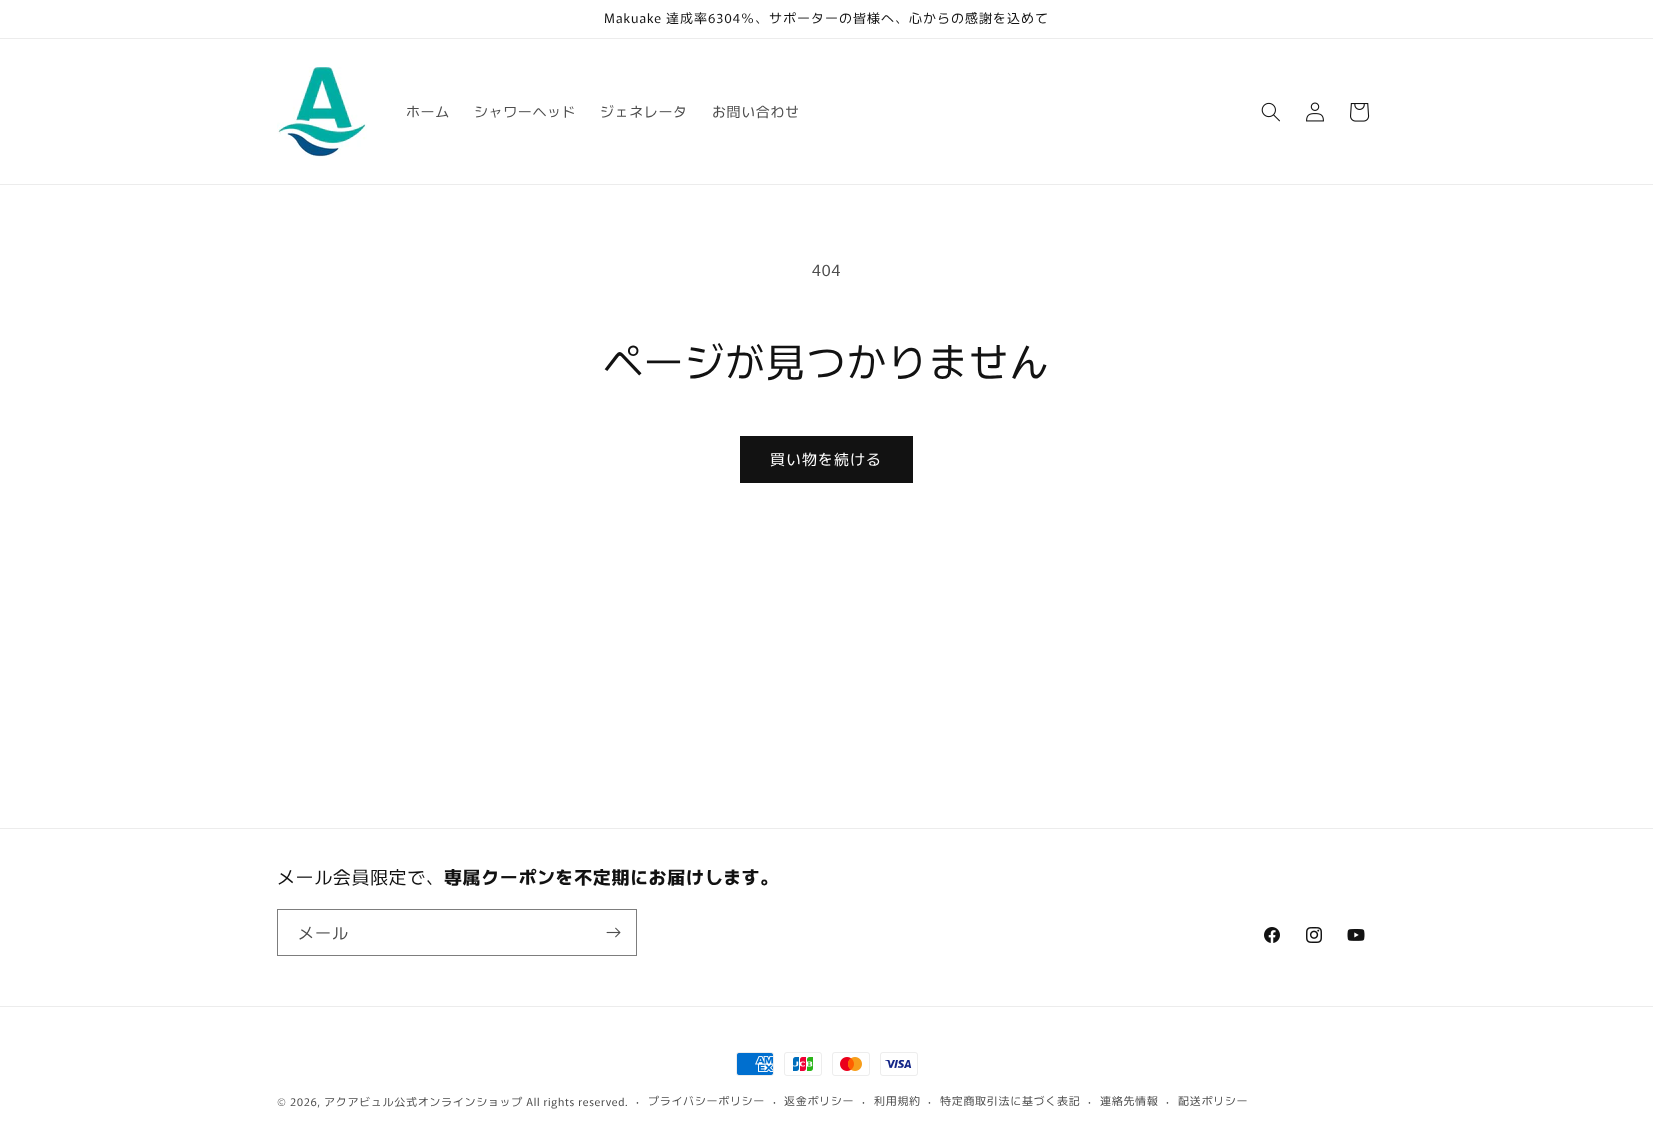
<!DOCTYPE html>
<meta charset="utf-8">
<style>body { margin: 0 } canvas { display: block }</style>
<canvas id="canvas" width="1653" height="1147"></canvas>
<img id="img1" src="img_01.png" hidden>
<img id="img2" src="img_02.png" hidden>
<img id="img3" src="img_03.png" hidden>
<img id="img4" src="img_04.png" hidden>
<img id="img5" src="img_05.png" hidden>
<img id="img6" src="img_06.png" hidden>
<img id="img7" src="img_07.png" hidden>
<img id="img8" src="img_08.png" hidden>
<img id="img9" src="img_09.png" hidden>
<img id="img10" src="img_10.png" hidden>
<img id="img11" src="img_11.png" hidden>
<img id="img12" src="img_12.png" hidden>
<script>
window.onload = function () {
	const canvas = document.getElementById("canvas");
	const ctx = canvas.getContext("2d");
	ctx.miterLimit = 4;
	ctx.fontKerning = "normal";
	function txt(s, x, y) {
		ctx.fillText(s, x, y);
	}
	function fill(x, y, w, h) {
		ctx.fillRect(x, y, w, h);
	}
	function img(id, x, y, w, h) {
		ctx.drawImage(document.getElementById(id), x, y, w, h);
	}

	ctx.fillStyle = "#FFFFFF";
	fill(0, 0, 1653, 1147);
	ctx.fillStyle = "#ECECEC";
	fill(0, 38, 1653, 1);
	fill(0, 184, 1653, 1);
	img("img1", 277, 67, 90, 90);
	img("img2", 1261, 102, 19, 20);
	img("img3", 1306, 102, 18, 20);
	img("img4", 1350, 103, 20, 19);
	ctx.fillStyle = "#121212";
	fill(740, 436, 173, 47);
	ctx.fillStyle = "#ECECEC";
	fill(0, 828, 1653, 1);
	ctx.strokeStyle = "#7D7D7D";
	ctx.strokeRect(277.5, 909.5, 359, 46);
	img("img5", 606, 927, 15, 11);
	img("img6", 1264, 927, 16, 16);
	img("img7", 1306, 927, 16, 16);
	img("img8", 1347, 929, 18, 12);
	fill(0, 1006, 1653, 1);
	img("img9", 736, 1052, 38, 24);
	img("img10", 784, 1052, 38, 24);
	img("img11", 832, 1052, 38, 24);
	img("img12", 880, 1052, 38, 24);
	ctx.letterSpacing = "1px";
	ctx.font = "13px Murecho";
	ctx.fillStyle = "#121212";
	txt("Makuake 達成率6304％、サポーターの皆様へ、心からの感謝を込めて", 604, 23);
	ctx.letterSpacing = "0.6px";
	ctx.font = "14px Murecho";
	ctx.fillStyle = "#4D4D4D";
	txt("ホーム", 406, 117);
	txt("シャワーヘッド", 474, 117);
	txt("ジェネレータ", 600, 117);
	txt("お問い合わせ", 712, 117);
	ctx.font = "16px Murecho";
	txt("404", 812, 276);
	ctx.font = "40px Murecho";
	ctx.fillStyle = "#121212";
	txt("ページが見つかりません", 603, 377);
	ctx.letterSpacing = "1px";
	ctx.font = "15px Murecho";
	ctx.fillStyle = "#FFFFFF";
	txt("買い物を続ける", 770, 465);
	ctx.letterSpacing = "0.6px";
	ctx.font = "18px Murecho";
	ctx.fillStyle = "#121212";
	txt("メール会員限定で、", 277, 884);
	ctx.font = "bold 18px Murecho";
	txt("専属クーポンを不定期にお届けします。", 444, 884);
	ctx.letterSpacing = "1px";
	ctx.font = "16px Murecho";
	ctx.fillStyle = "#4D4D4D";
	txt("メール", 298, 939);
	ctx.letterSpacing = "0.7px";
	ctx.font = "11px Murecho";
	txt("© 2026, アクアビュル公式オンラインショップ All rights reserved.", 277, 1106);
	ctx.font = "12px Murecho";
	txt("·", 636, 1106);
	ctx.font = "11px Murecho";
	txt("プライバシーポリシー", 648, 1105);
	ctx.font = "12px Murecho";
	txt("·", 773, 1106);
	ctx.font = "11px Murecho";
	txt("返金ポリシー", 784, 1105);
	ctx.font = "12px Murecho";
	txt("·", 862, 1106);
	ctx.font = "11px Murecho";
	txt("利用規約", 874, 1105);
	ctx.font = "12px Murecho";
	txt("·", 928, 1106);
	ctx.font = "11px Murecho";
	txt("特定商取引法に基づく表記", 940, 1105);
	ctx.font = "12px Murecho";
	txt("·", 1088, 1106);
	ctx.font = "11px Murecho";
	txt("連絡先情報", 1100, 1105);
	ctx.font = "12px Murecho";
	txt("·", 1166, 1106);
	ctx.font = "11px Murecho";
	txt("配送ポリシー", 1178, 1105);
};
</script>
